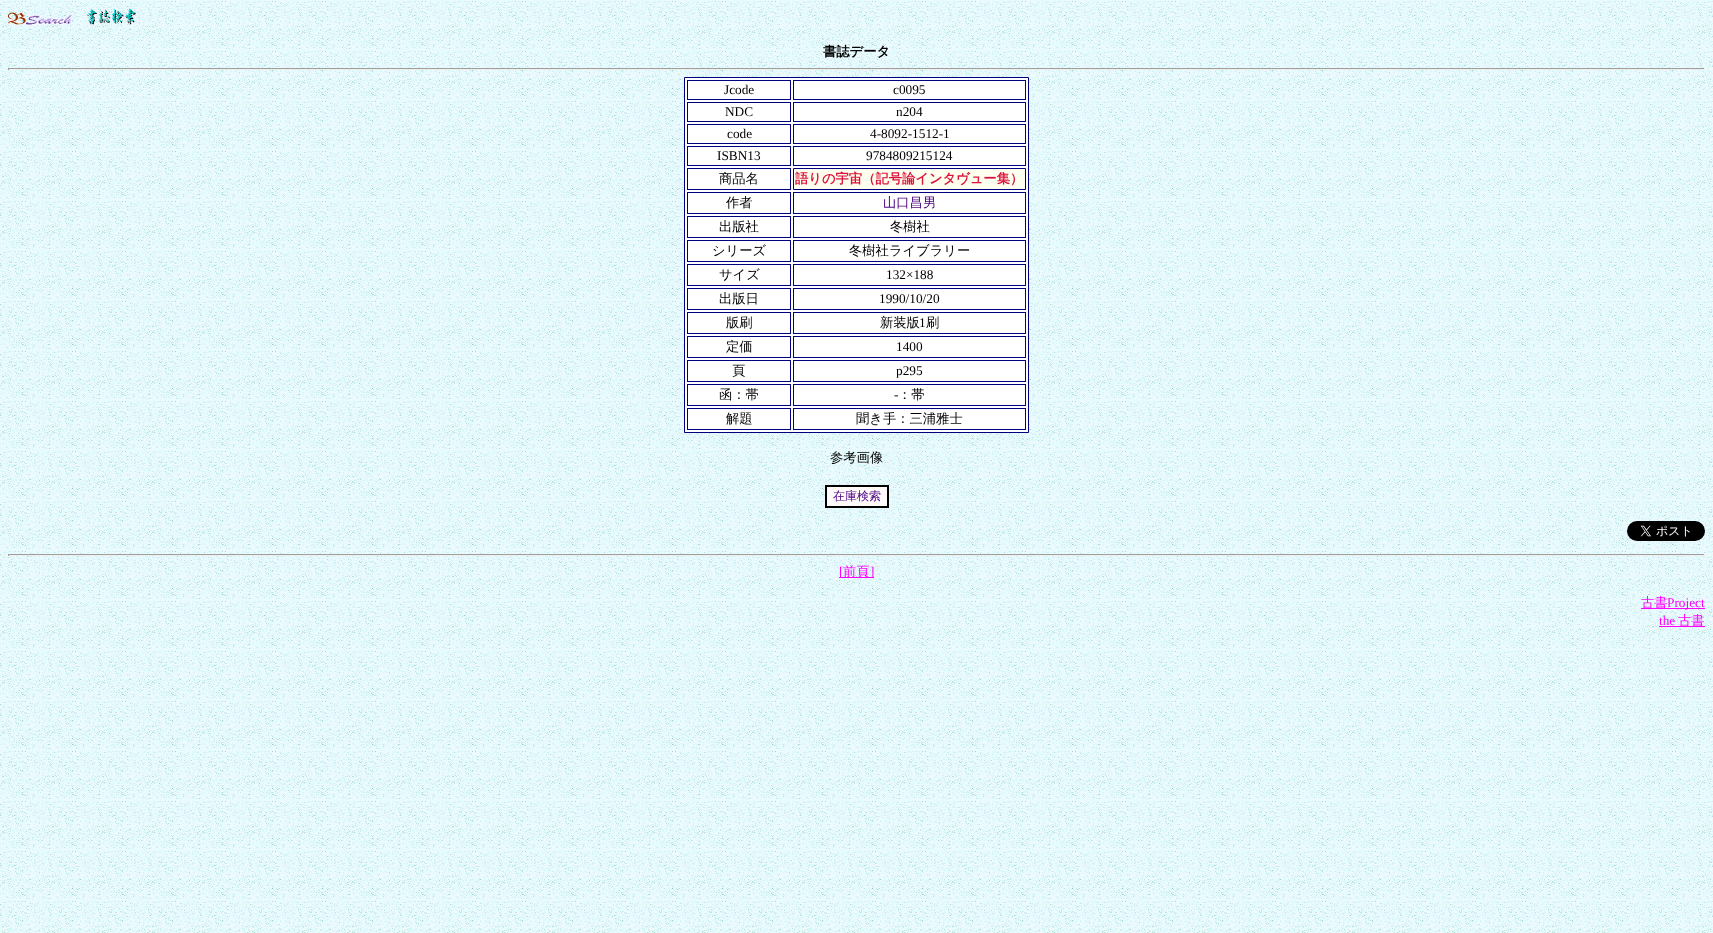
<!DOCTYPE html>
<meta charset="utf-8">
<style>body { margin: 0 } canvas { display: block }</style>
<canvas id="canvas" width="1713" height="933"></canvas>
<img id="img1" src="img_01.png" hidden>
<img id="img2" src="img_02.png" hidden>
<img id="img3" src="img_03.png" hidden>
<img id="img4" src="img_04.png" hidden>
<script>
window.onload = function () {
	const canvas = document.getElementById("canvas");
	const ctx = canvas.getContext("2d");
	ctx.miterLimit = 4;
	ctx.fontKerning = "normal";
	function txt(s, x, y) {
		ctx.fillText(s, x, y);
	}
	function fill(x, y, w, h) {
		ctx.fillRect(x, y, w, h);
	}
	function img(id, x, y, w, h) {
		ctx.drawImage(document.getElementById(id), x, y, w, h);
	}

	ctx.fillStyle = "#FFFFFF";
	fill(0, 0, 1713, 933);
	img("img1", 0, 0, 1713, 933);
	img("img2", 8, 12, 64, 13);
	img("img3", 86, 8, 50, 17);
	ctx.fillStyle = "#9F9F9F";
	fill(8, 68, 1697, 1);
	ctx.fillStyle = "#EEEEEE";
	fill(1704, 68, 1, 2);
	fill(8, 69, 1697, 1);
	ctx.fillStyle = "#9F9F9F";
	fill(8, 68, 1, 2);
	ctx.fillStyle = "#FFFFFF";
	ctx.beginPath();
	ctx.rect(684.5, 77.5, 344, 355);
	ctx.fill();
	ctx.strokeStyle = "#000080";
	ctx.stroke();
	ctx.strokeRect(687.5, 80.5, 103, 19);
	ctx.strokeRect(793.5, 80.5, 232, 19);
	ctx.strokeRect(687.5, 102.5, 103, 19);
	ctx.strokeRect(793.5, 102.5, 232, 19);
	ctx.strokeRect(687.5, 124.5, 103, 19);
	ctx.strokeRect(793.5, 124.5, 232, 19);
	ctx.strokeRect(687.5, 146.5, 103, 19);
	ctx.strokeRect(793.5, 146.5, 232, 19);
	ctx.strokeRect(687.5, 168.5, 103, 21);
	ctx.fillStyle = "#FFFFF0";
	ctx.beginPath();
	ctx.rect(793.5, 168.5, 232, 21);
	ctx.fill();
	ctx.stroke();
	ctx.strokeRect(687.5, 192.5, 103, 21);
	ctx.strokeRect(793.5, 192.5, 232, 21);
	ctx.strokeRect(687.5, 216.5, 103, 21);
	ctx.strokeRect(793.5, 216.5, 232, 21);
	ctx.strokeRect(687.5, 240.5, 103, 21);
	ctx.strokeRect(793.5, 240.5, 232, 21);
	ctx.strokeRect(687.5, 264.5, 103, 21);
	ctx.strokeRect(793.5, 264.5, 232, 21);
	ctx.strokeRect(687.5, 288.5, 103, 21);
	ctx.strokeRect(793.5, 288.5, 232, 21);
	ctx.strokeRect(687.5, 312.5, 103, 21);
	ctx.strokeRect(793.5, 312.5, 232, 21);
	ctx.strokeRect(687.5, 336.5, 103, 21);
	ctx.strokeRect(793.5, 336.5, 232, 21);
	ctx.strokeRect(687.5, 360.5, 103, 21);
	ctx.strokeRect(793.5, 360.5, 232, 21);
	ctx.strokeRect(687.5, 384.5, 103, 21);
	ctx.strokeRect(793.5, 384.5, 232, 21);
	ctx.strokeRect(687.5, 408.5, 103, 21);
	ctx.strokeRect(793.5, 408.5, 232, 21);
	ctx.fillStyle = "#FFFAFA";
	ctx.beginPath();
	ctx.rect(826, 486, 62, 21);
	ctx.fill();
	ctx.strokeStyle = "#000000";
	ctx.lineWidth = 2;
	ctx.stroke();
	img("img4", 1627, 521, 78, 20);
	ctx.fillStyle = "#9F9F9F";
	fill(8, 554, 1697, 1);
	ctx.fillStyle = "#EEEEEE";
	fill(1704, 554, 1, 2);
	fill(8, 555, 1697, 1);
	ctx.fillStyle = "#9F9F9F";
	fill(8, 554, 1, 2);
	ctx.fillStyle = "#FF00FF";
	fill(839, 577, 35, 1);
	fill(1641, 608, 64, 1);
	fill(1659, 626, 46, 1);
	ctx.font = "bold 13.3px WenQuanYi Zen Hei";
	ctx.fillStyle = "#000000";
	txt("書誌データ", 823, 56);
	ctx.font = "13.3px Liberation Serif";
	txt("Jcode", 724, 94);
	txt("c0095", 893, 94);
	txt("NDC", 725, 116);
	txt("n204", 896, 116);
	txt("code", 727, 138);
	txt("4-8092-1512-1", 870, 138);
	txt("ISBN13", 717, 160);
	txt("9784809215124", 866, 160);
	ctx.font = "500 13.3px WenQuanYi Zen Hei";
	txt("商品名", 719, 183);
	ctx.font = "bold 13.3px WenQuanYi Zen Hei";
	ctx.fillStyle = "#DC143C";
	txt("語りの宇宙（記号論インタヴュー集）", 795, 183);
	ctx.font = "500 13.3px WenQuanYi Zen Hei";
	ctx.fillStyle = "#000000";
	txt("作者", 726, 207);
	ctx.fillStyle = "#4B0082";
	txt("山口昌男", 883, 207);
	ctx.fillStyle = "#000000";
	txt("出版社", 719, 231);
	txt("冬樹社", 890, 231);
	txt("シリーズ", 712, 255);
	txt("冬樹社ライブラリー", 849, 255);
	txt("サイズ", 719, 279);
	ctx.font = "13.3px Liberation Serif";
	txt("132×188", 886, 279);
	ctx.font = "500 13.3px WenQuanYi Zen Hei";
	txt("出版日", 719, 303);
	ctx.font = "13.3px Liberation Serif";
	txt("1990/10/20", 879, 303);
	ctx.font = "500 13.3px WenQuanYi Zen Hei";
	txt("版刷", 726, 327);
	txt("新装版", 880, 327);
	ctx.font = "13.3px Liberation Serif";
	txt("1", 919, 327);
	ctx.font = "500 13.3px WenQuanYi Zen Hei";
	txt("刷", 926, 327);
	txt("定価", 726, 351);
	ctx.font = "13.3px Liberation Serif";
	txt("1400", 896, 351);
	ctx.font = "500 13.3px WenQuanYi Zen Hei";
	txt("頁", 732, 375);
	ctx.font = "13.3px Liberation Serif";
	txt("p295", 896, 375);
	ctx.font = "500 13.3px WenQuanYi Zen Hei";
	txt("函：帯", 719, 399);
	ctx.font = "13.3px Liberation Serif";
	txt("-", 894, 399);
	ctx.font = "500 13.3px WenQuanYi Zen Hei";
	txt("：帯", 898, 399);
	txt("解題", 726, 423);
	txt("聞き手：三浦雅士", 856, 423);
	txt("参考画像", 830, 462);
	ctx.font = "500 12px WenQuanYi Zen Hei";
	ctx.fillStyle = "#4B0082";
	txt("在庫検索", 833, 500);
	ctx.font = "13.3px Liberation Serif";
	ctx.fillStyle = "#FF00FF";
	txt("[", 839, 576);
	ctx.font = "500 13.3px WenQuanYi Zen Hei";
	txt("前頁", 843, 576);
	ctx.font = "13.3px Liberation Serif";
	txt("]", 870, 576);
	ctx.font = "500 13.3px WenQuanYi Zen Hei";
	txt("古書", 1641, 607);
	ctx.font = "13.3px Liberation Serif";
	txt("Project", 1667, 607);
	txt("the", 1659, 625);
	ctx.font = "500 13.3px WenQuanYi Zen Hei";
	txt("古書", 1678, 625);
};
</script>
